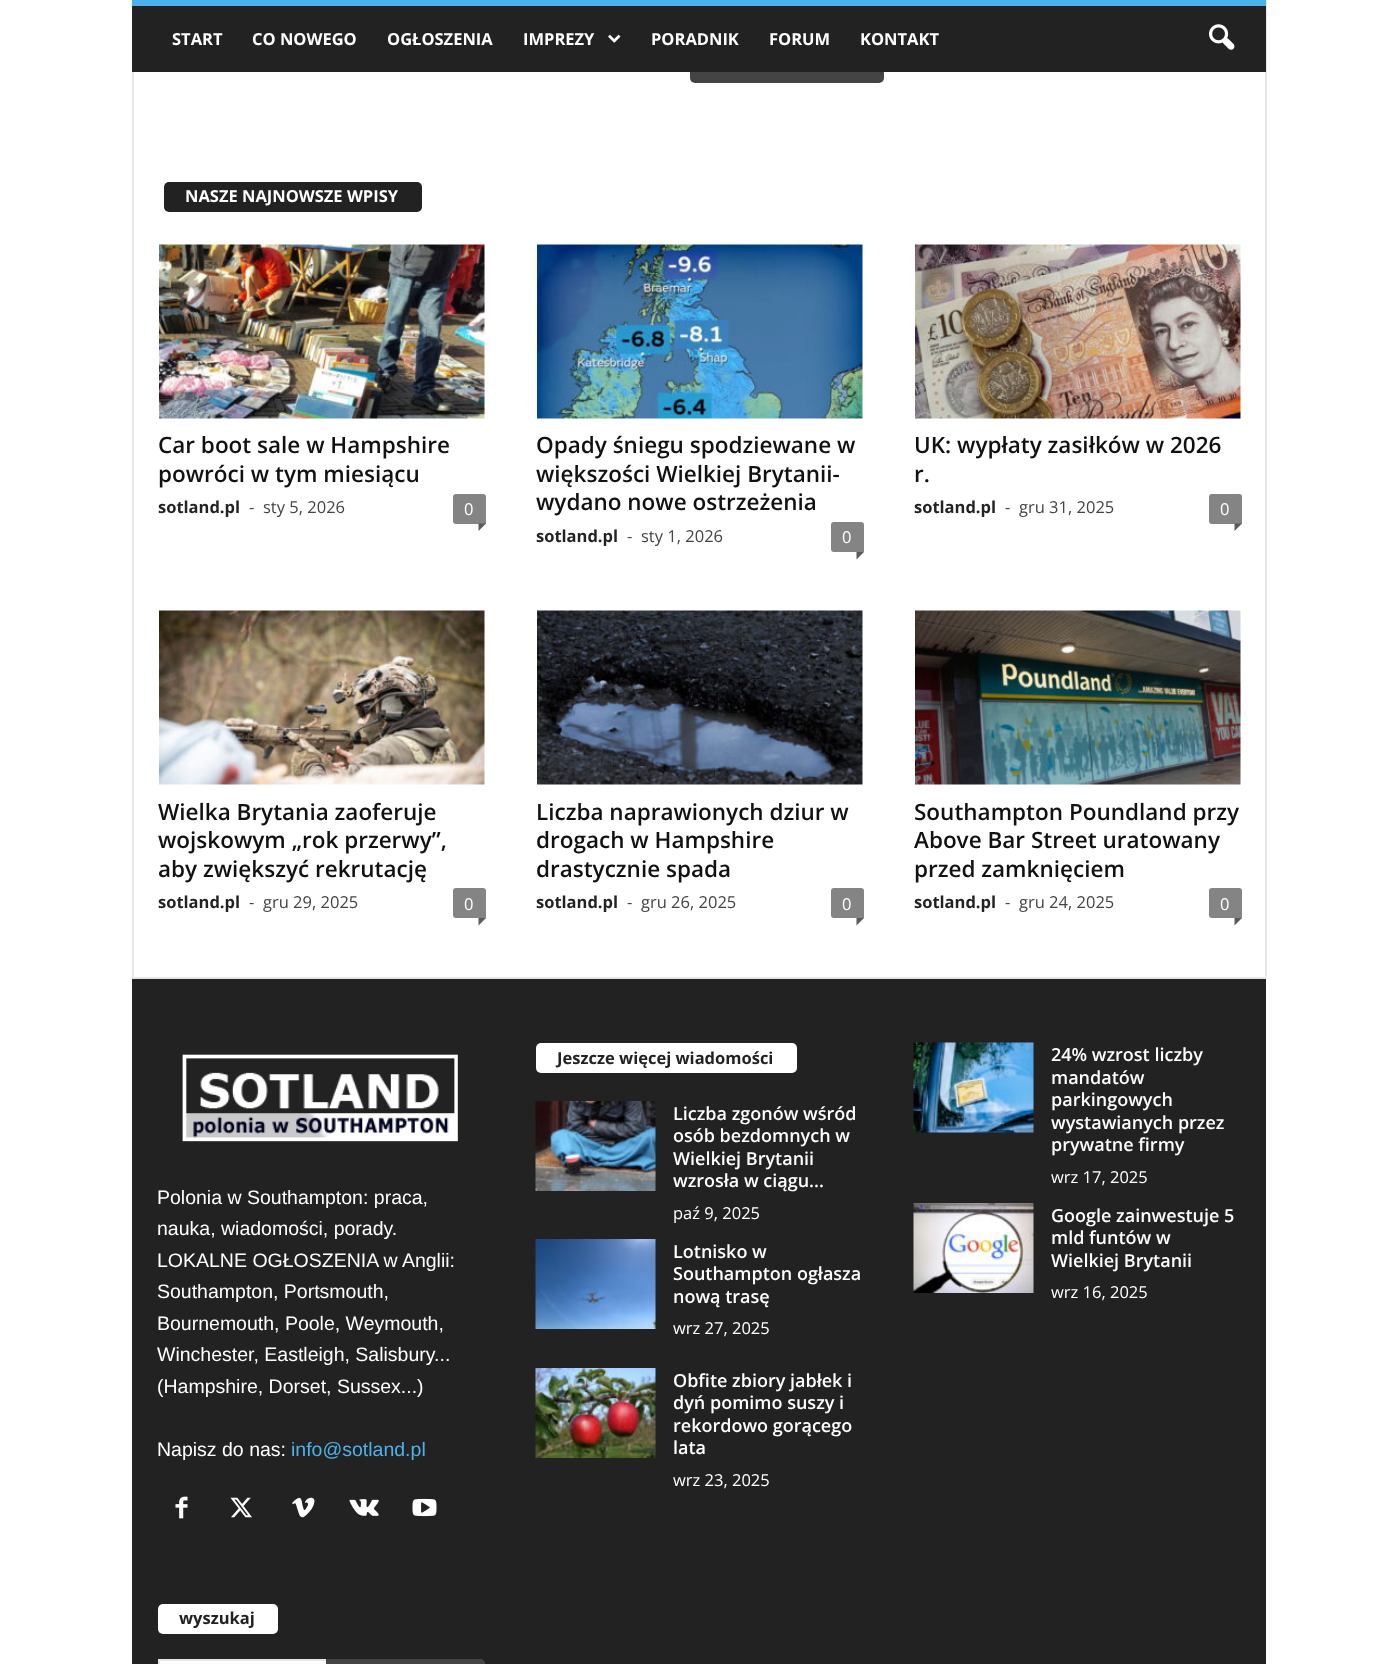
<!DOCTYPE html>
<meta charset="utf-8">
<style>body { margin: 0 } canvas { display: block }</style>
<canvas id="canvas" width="1396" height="1664"></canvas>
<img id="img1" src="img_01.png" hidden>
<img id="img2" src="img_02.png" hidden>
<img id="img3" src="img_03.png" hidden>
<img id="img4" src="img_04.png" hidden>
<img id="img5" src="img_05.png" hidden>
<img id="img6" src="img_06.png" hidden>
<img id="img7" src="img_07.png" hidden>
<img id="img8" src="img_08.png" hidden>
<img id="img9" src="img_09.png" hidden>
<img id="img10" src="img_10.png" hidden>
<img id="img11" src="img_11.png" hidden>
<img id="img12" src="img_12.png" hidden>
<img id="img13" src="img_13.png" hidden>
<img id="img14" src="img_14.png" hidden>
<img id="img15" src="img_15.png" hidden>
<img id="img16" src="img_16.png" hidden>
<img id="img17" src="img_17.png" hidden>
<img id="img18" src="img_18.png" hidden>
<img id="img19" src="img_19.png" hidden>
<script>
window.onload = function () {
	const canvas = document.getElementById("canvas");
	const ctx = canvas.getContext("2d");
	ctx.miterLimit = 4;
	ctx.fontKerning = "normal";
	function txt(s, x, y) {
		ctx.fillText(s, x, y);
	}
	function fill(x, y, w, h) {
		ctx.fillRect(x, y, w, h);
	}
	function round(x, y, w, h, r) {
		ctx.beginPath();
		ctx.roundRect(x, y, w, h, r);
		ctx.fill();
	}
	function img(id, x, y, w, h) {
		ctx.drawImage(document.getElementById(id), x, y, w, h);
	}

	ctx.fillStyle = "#FFFFFF";
	fill(0, 0, 1396, 1664);
	ctx.fillStyle = "#444444";
	round(690, 41, 194, 42, 5);
	ctx.fillStyle = "#E6E6E6";
	fill(1265, 0, 2, 977);
	ctx.fillStyle = "#222222";
	fill(132, 6, 1134, 66);
	ctx.fillStyle = "#4DB2EC";
	fill(132, 0, 1134, 6);
	img("img1", 608, 34, 13, 9);
	img("img2", 1209, 24, 26, 26);
	ctx.fillStyle = "#E6E6E6";
	fill(132, 977, 1134, 2);
	fill(132, 72, 2, 905);
	ctx.fillStyle = "#222222";
	round(164, 182, 258, 30, 5);
	img("img3", 159, 244, 326, 175);
	ctx.fillStyle = "#848484";
	ctx.beginPath();
	ctx.roundRect(453, 494, 33, 30, [3, 3, 0, 3]);
	ctx.fill();
	ctx.fillStyle = "#5B5B5B";
	ctx.beginPath();
	ctx.moveTo(478.5, 523.5);
	ctx.lineTo(486, 523.5);
	ctx.lineTo(478.5, 531);
	ctx.closePath();
	ctx.fill();
	img("img4", 537, 244, 326, 175);
	ctx.fillStyle = "#848484";
	ctx.beginPath();
	ctx.roundRect(831, 522, 33, 30, [3, 3, 0, 3]);
	ctx.fill();
	ctx.fillStyle = "#5B5B5B";
	ctx.beginPath();
	ctx.moveTo(856.5, 552);
	ctx.lineTo(864, 552);
	ctx.lineTo(856.5, 559.5);
	ctx.closePath();
	ctx.fill();
	img("img5", 915, 244, 326, 175);
	ctx.fillStyle = "#848484";
	ctx.beginPath();
	ctx.roundRect(1209, 494, 33, 30, [3, 3, 0, 3]);
	ctx.fill();
	ctx.fillStyle = "#5B5B5B";
	ctx.beginPath();
	ctx.moveTo(1234.5, 523.5);
	ctx.lineTo(1242, 523.5);
	ctx.lineTo(1234.5, 531);
	ctx.closePath();
	ctx.fill();
	img("img6", 159, 610, 326, 175);
	ctx.fillStyle = "#848484";
	ctx.beginPath();
	ctx.roundRect(453, 888, 33, 30, [3, 3, 0, 3]);
	ctx.fill();
	ctx.fillStyle = "#5B5B5B";
	ctx.beginPath();
	ctx.moveTo(478.5, 918);
	ctx.lineTo(486, 918);
	ctx.lineTo(478.5, 925.5);
	ctx.closePath();
	ctx.fill();
	img("img7", 537, 610, 326, 175);
	ctx.fillStyle = "#848484";
	ctx.beginPath();
	ctx.roundRect(831, 888, 33, 30, [3, 3, 0, 3]);
	ctx.fill();
	ctx.fillStyle = "#5B5B5B";
	ctx.beginPath();
	ctx.moveTo(856.5, 918);
	ctx.lineTo(864, 918);
	ctx.lineTo(856.5, 925.5);
	ctx.closePath();
	ctx.fill();
	img("img8", 915, 610, 326, 175);
	ctx.fillStyle = "#848484";
	ctx.beginPath();
	ctx.roundRect(1209, 888, 33, 30, [3, 3, 0, 3]);
	ctx.fill();
	ctx.fillStyle = "#5B5B5B";
	ctx.beginPath();
	ctx.moveTo(1234.5, 918);
	ctx.lineTo(1242, 918);
	ctx.lineTo(1234.5, 925.5);
	ctx.closePath();
	ctx.fill();
	ctx.fillStyle = "#222222";
	fill(132, 979, 1134, 685);
	img("img9", 182, 1054, 276, 88);
	img("img10", 175, 1496, 13, 23);
	img("img11", 230, 1497, 22, 21);
	img("img12", 292, 1497, 23, 21);
	img("img13", 349, 1499, 30, 17);
	img("img14", 412, 1498, 25, 19);
	ctx.fillStyle = "#FFFFFF";
	round(158, 1604, 120, 30, 5);
	fill(158, 1661, 168, 3);
	ctx.fillStyle = "#E6E6E6";
	fill(158, 1659, 168, 2);
	fill(158, 1659, 2, 5);
	ctx.fillStyle = "#444444";
	ctx.beginPath();
	ctx.moveTo(326, 1659);
	ctx.lineTo(480, 1659);
	ctx.bezierCurveTo(483, 1659, 485, 1661, 485, 1664);
	ctx.bezierCurveTo(485, 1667, 483, 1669, 480, 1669);
	ctx.lineTo(326, 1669);
	ctx.closePath();
	ctx.fill();
	ctx.fillStyle = "#FFFFFF";
	round(536, 1043, 261, 30, 5);
	img("img15", 535, 1101, 121, 90);
	img("img16", 535, 1239, 121, 90);
	img("img17", 535, 1368, 121, 90);
	img("img18", 913, 1042, 121, 91);
	img("img19", 913, 1203, 121, 90);
	ctx.font = "bold 16.5px Open Sans";
	txt("START", 172, 45);
	txt("CO NOWEGO", 252, 45);
	txt("OGŁOSZENIA", 387, 45);
	txt("IMPREZY", 523, 45);
	txt("PORADNIK", 651, 45);
	txt("FORUM", 769, 45);
	txt("KONTAKT", 860, 45);
	txt("NASZE NAJNOWSZE WPISY", 185, 202);
	ctx.font = "600 22.5px Open Sans";
	ctx.fillStyle = "#111111";
	txt("Car boot sale w Hampshire", 158, 453);
	txt("powróci w tym miesiącu", 158, 482);
	ctx.font = "bold 16.5px Open Sans";
	ctx.fillStyle = "#222222";
	txt("sotland.pl", 158, 513);
	ctx.font = "16.5px Open Sans";
	ctx.fillStyle = "#444444";
	txt("-", 249, 513);
	txt("sty 5, 2026", 263, 513);
	ctx.fillStyle = "#FFFFFF";
	txt("0", 464, 515);
	ctx.font = "600 22.5px Open Sans";
	ctx.fillStyle = "#111111";
	txt("Opady śniegu spodziewane w", 536, 453);
	txt("większości Wielkiej Brytanii-", 536, 482);
	txt("wydano nowe ostrzeżenia", 536, 510);
	ctx.font = "bold 16.5px Open Sans";
	ctx.fillStyle = "#222222";
	txt("sotland.pl", 536, 542);
	ctx.font = "16.5px Open Sans";
	ctx.fillStyle = "#444444";
	txt("-", 627, 542);
	txt("sty 1, 2026", 641, 542);
	ctx.fillStyle = "#FFFFFF";
	txt("0", 842, 543);
	ctx.font = "600 22.5px Open Sans";
	ctx.fillStyle = "#111111";
	txt("UK: wypłaty zasiłków w 2026", 914, 453);
	txt("r.", 914, 482);
	ctx.font = "bold 16.5px Open Sans";
	ctx.fillStyle = "#222222";
	txt("sotland.pl", 914, 513);
	ctx.font = "16.5px Open Sans";
	ctx.fillStyle = "#444444";
	txt("-", 1005, 513);
	txt("gru 31, 2025", 1019, 513);
	ctx.fillStyle = "#FFFFFF";
	txt("0", 1220, 515);
	ctx.font = "600 22.5px Open Sans";
	ctx.fillStyle = "#111111";
	txt("Wielka Brytania zaoferuje", 158, 820);
	txt("wojskowym „rok przerwy”,", 158, 848);
	txt("aby zwiększyć rekrutację", 158, 877);
	ctx.font = "bold 16.5px Open Sans";
	ctx.fillStyle = "#222222";
	txt("sotland.pl", 158, 908);
	ctx.font = "16.5px Open Sans";
	ctx.fillStyle = "#444444";
	txt("-", 249, 908);
	txt("gru 29, 2025", 263, 908);
	ctx.fillStyle = "#FFFFFF";
	txt("0", 464, 910);
	ctx.font = "600 22.5px Open Sans";
	ctx.fillStyle = "#111111";
	txt("Liczba naprawionych dziur w", 536, 820);
	txt("drogach w Hampshire", 536, 848);
	txt("drastycznie spada", 536, 877);
	ctx.font = "bold 16.5px Open Sans";
	ctx.fillStyle = "#222222";
	txt("sotland.pl", 536, 908);
	ctx.font = "16.5px Open Sans";
	ctx.fillStyle = "#444444";
	txt("-", 627, 908);
	txt("gru 26, 2025", 641, 908);
	ctx.fillStyle = "#FFFFFF";
	txt("0", 842, 910);
	ctx.font = "600 22.5px Open Sans";
	ctx.fillStyle = "#111111";
	txt("Southampton Poundland przy", 914, 820);
	txt("Above Bar Street uratowany", 914, 848);
	txt("przed zamknięciem", 914, 877);
	ctx.font = "bold 16.5px Open Sans";
	ctx.fillStyle = "#222222";
	txt("sotland.pl", 914, 908);
	ctx.font = "16.5px Open Sans";
	ctx.fillStyle = "#444444";
	txt("-", 1005, 908);
	txt("gru 24, 2025", 1019, 908);
	ctx.fillStyle = "#FFFFFF";
	txt("0", 1220, 910);
	ctx.font = "19.5px Liberation Sans";
	txt("Polonia w Southampton: praca,", 157, 1204);
	txt("nauka, wiadomości, porady.", 157, 1235);
	txt("LOKALNE OGŁOSZENIA w Anglii:", 157, 1267);
	txt("Southampton, Portsmouth,", 157, 1298);
	txt("Bournemouth, Poole, Weymouth,", 157, 1330);
	txt("Winchester, Eastleigh, Salisbury...", 157, 1361);
	txt("(Hampshire, Dorset, Sussex...)", 157, 1393);
	txt("Napisz do nas:", 157, 1456);
	ctx.fillStyle = "#4DB2EC";
	txt("info@sotland.pl", 291, 1456);
	ctx.font = "bold 16.5px Open Sans";
	ctx.fillStyle = "#222222";
	txt("wyszukaj", 179, 1624);
	txt("Jeszcze więcej wiadomości", 557, 1064);
	ctx.font = "600 18px Open Sans";
	ctx.fillStyle = "#FFFFFF";
	txt("Liczba zgonów wśród", 673, 1120);
	txt("osób bezdomnych w", 673, 1142);
	txt("Wielkiej Brytanii", 673, 1165);
	txt("wzrosła w ciągu...", 673, 1187);
	ctx.font = "16.5px Open Sans";
	txt("paź 9, 2025", 673, 1219);
	ctx.font = "600 18px Open Sans";
	txt("Lotnisko w", 673, 1258);
	txt("Southampton ogłasza", 673, 1280);
	txt("nową trasę", 673, 1303);
	ctx.font = "16.5px Open Sans";
	txt("wrz 27, 2025", 673, 1334);
	ctx.font = "600 18px Open Sans";
	txt("Obfite zbiory jabłek i", 673, 1387);
	txt("dyń pomimo suszy i", 673, 1409);
	txt("rekordowo gorącego", 673, 1432);
	txt("lata", 673, 1454);
	ctx.font = "16.5px Open Sans";
	txt("wrz 23, 2025", 673, 1486);
	ctx.font = "600 18px Open Sans";
	txt("24% wzrost liczby", 1051, 1061);
	txt("mandatów", 1051, 1084);
	txt("parkingowych", 1051, 1106);
	txt("wystawianych przez", 1051, 1129);
	txt("prywatne firmy", 1051, 1151);
	ctx.font = "16.5px Open Sans";
	txt("wrz 17, 2025", 1051, 1183);
	ctx.font = "600 18px Open Sans";
	txt("Google zainwestuje 5", 1051, 1222);
	txt("mld funtów w", 1051, 1244);
	txt("Wielkiej Brytanii", 1051, 1267);
	ctx.font = "16.5px Open Sans";
	txt("wrz 16, 2025", 1051, 1298);
};
</script>
